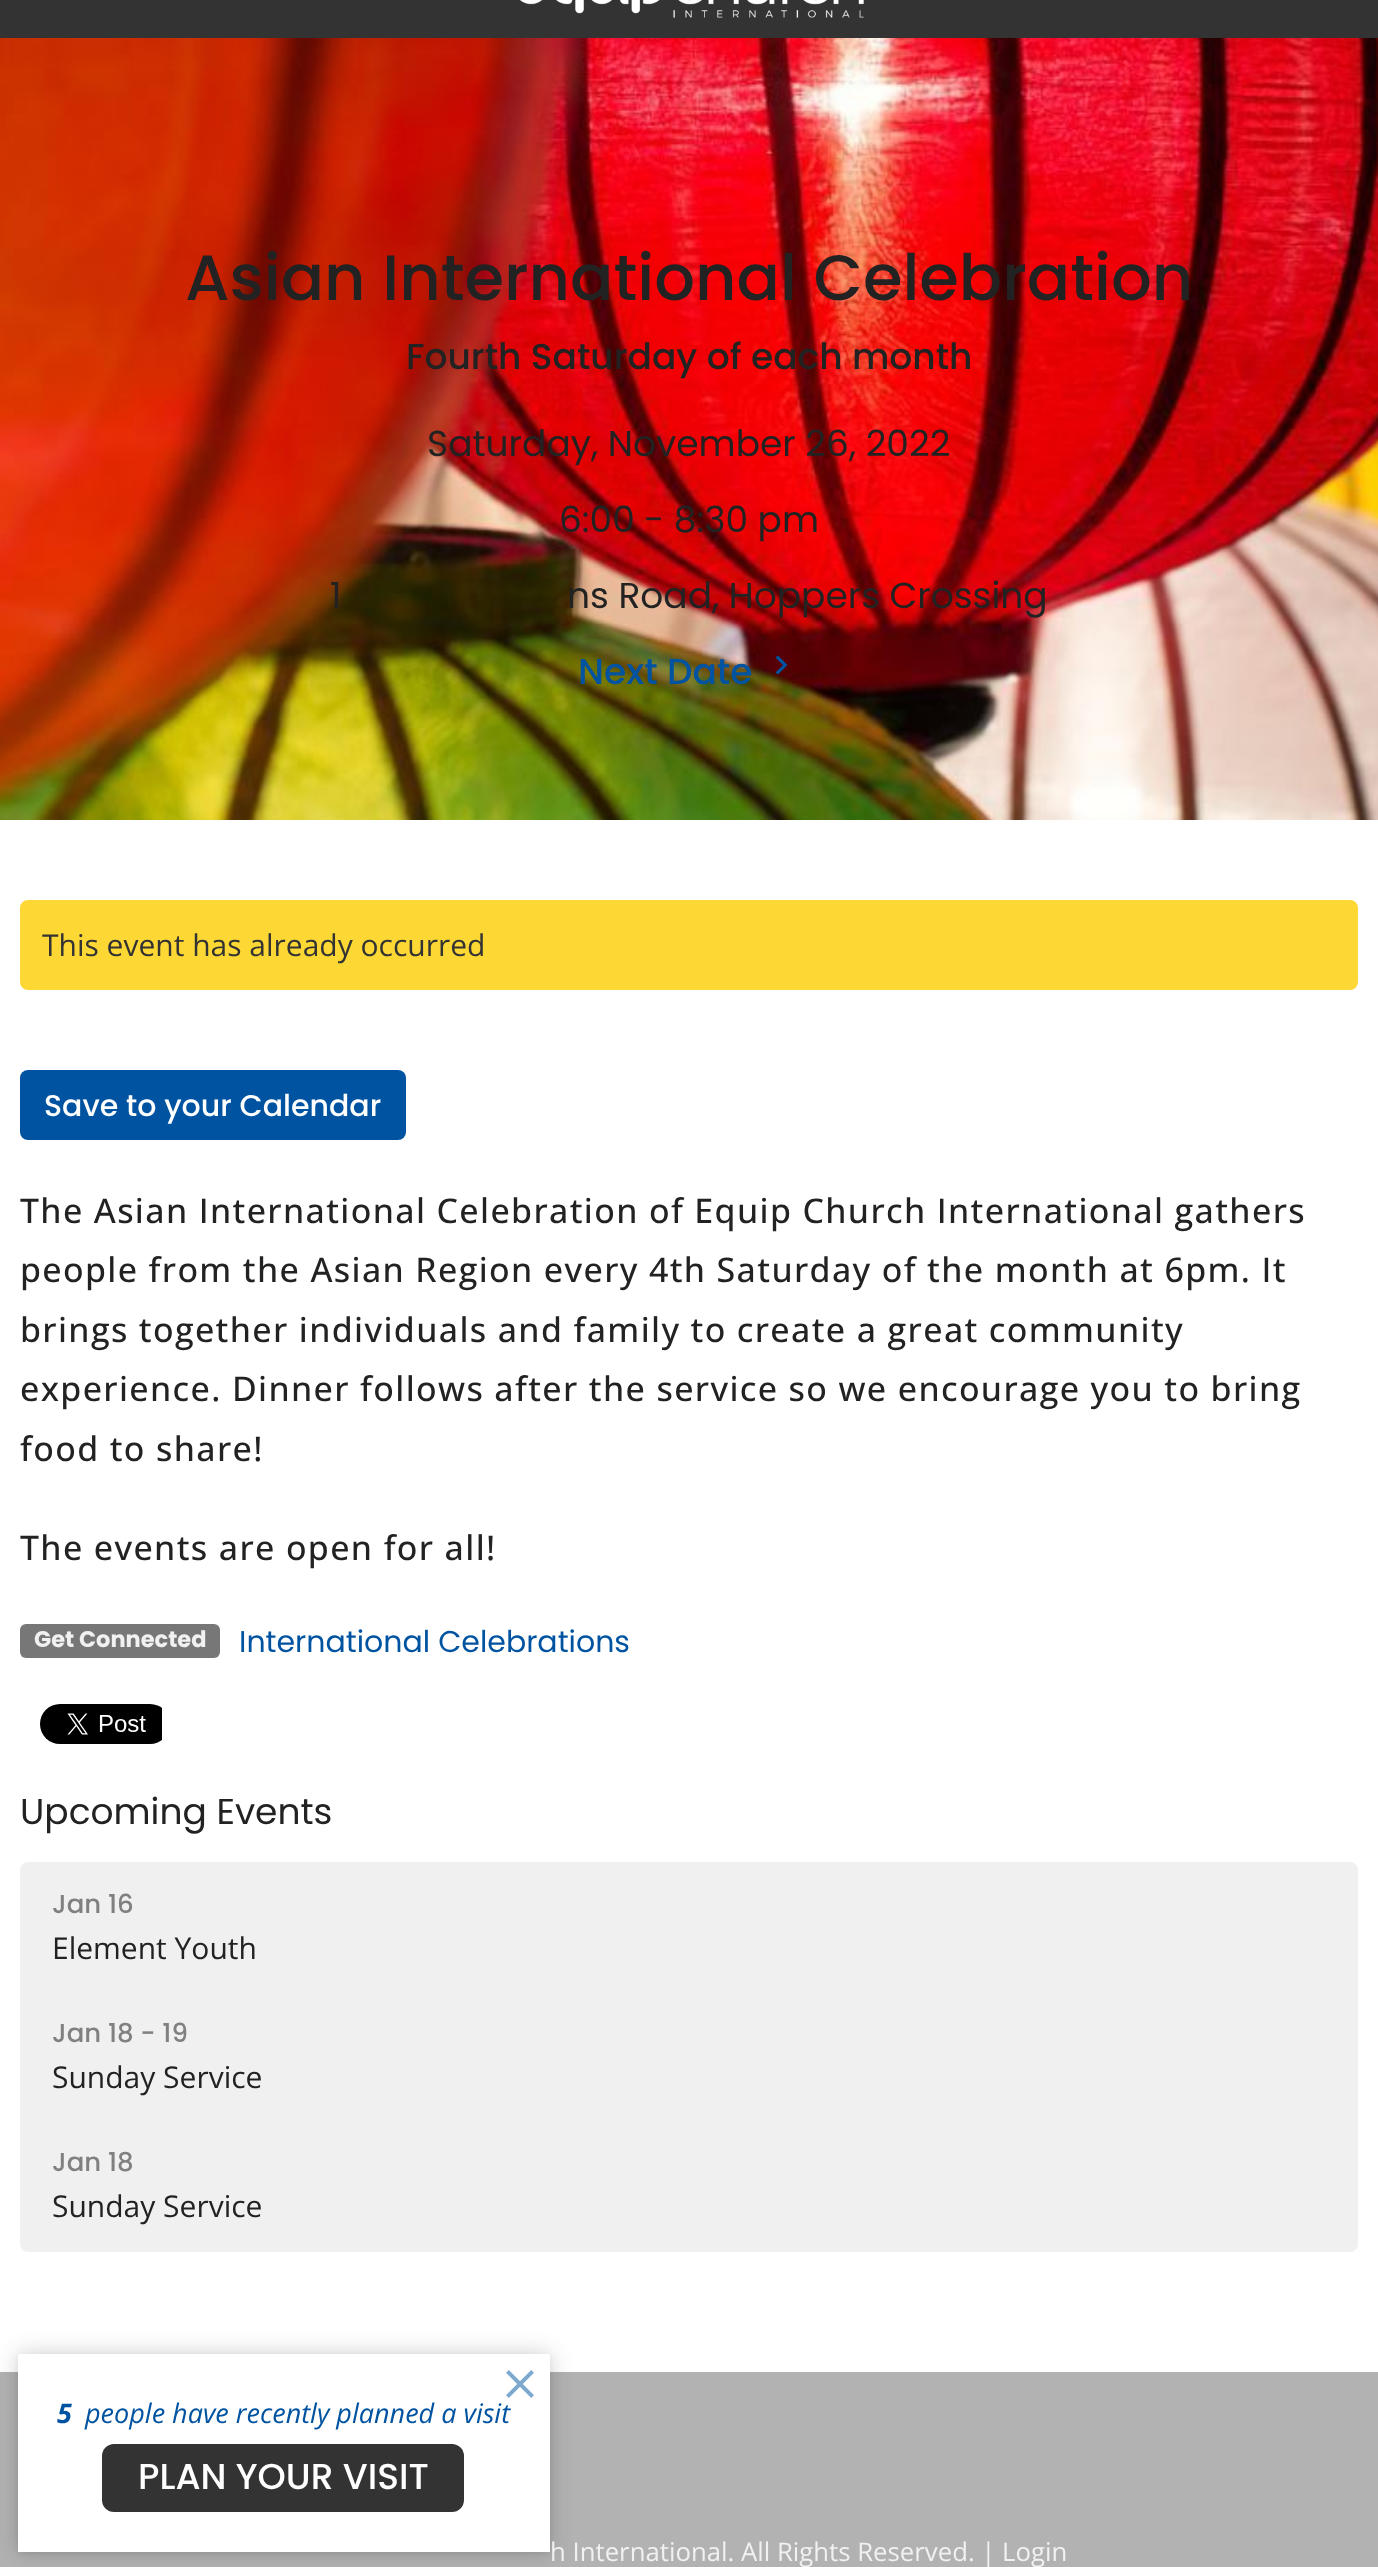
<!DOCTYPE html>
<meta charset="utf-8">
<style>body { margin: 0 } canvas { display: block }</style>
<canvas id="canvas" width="1378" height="2567"></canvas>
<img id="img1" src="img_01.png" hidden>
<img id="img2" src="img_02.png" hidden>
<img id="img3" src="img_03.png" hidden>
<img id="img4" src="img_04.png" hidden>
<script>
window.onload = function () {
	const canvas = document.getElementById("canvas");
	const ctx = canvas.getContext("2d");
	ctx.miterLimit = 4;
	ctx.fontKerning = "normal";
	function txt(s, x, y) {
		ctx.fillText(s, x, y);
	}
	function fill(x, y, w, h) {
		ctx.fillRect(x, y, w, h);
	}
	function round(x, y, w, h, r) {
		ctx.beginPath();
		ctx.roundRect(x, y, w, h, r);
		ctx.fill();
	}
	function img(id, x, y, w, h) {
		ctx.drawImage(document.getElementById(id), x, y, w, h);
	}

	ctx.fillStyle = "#FFFFFF";
	fill(0, 0, 1378, 2567);
	ctx.fillStyle = "#333333";
	fill(0, 0, 1378, 38);
	img("img1", 520, 0, 344, 18);
	img("img2", 0, 38, 1378, 782);
	ctx.fillStyle = "#0053A0";
	ctx.beginPath();
	ctx.moveTo(775.5, 672.5);
	ctx.lineTo(783, 665);
	ctx.lineTo(775.5, 657.5);
	ctx.lineTo(778, 655.5);
	ctx.lineTo(787.5, 665);
	ctx.lineTo(778, 674.5);
	ctx.closePath();
	ctx.fill();
	ctx.fillStyle = "#FDD835";
	ctx.beginPath();
	ctx.roundRect(21, 901, 1336, 88, 7);
	ctx.fill();
	ctx.strokeStyle = "#FDD835";
	ctx.lineWidth = 2;
	ctx.stroke();
	ctx.fillStyle = "#0053A0";
	round(20, 1070, 386, 70, 8);
	ctx.fillStyle = "#777777";
	round(20, 1624, 200, 34, 6);
	img("img3", 40, 1704, 122, 40);
	ctx.fillStyle = "#F0F0F0";
	ctx.beginPath();
	ctx.roundRect(20, 1862, 1338, 132, [8, 8, 0, 0]);
	ctx.fill();
	fill(20, 1994, 1338, 126);
	ctx.beginPath();
	ctx.roundRect(20, 2120, 1338, 132, [0, 0, 8, 8]);
	ctx.fill();
	ctx.fillStyle = "#B2B2B2";
	fill(0, 2372, 1378, 195);
	ctx.fillStyle = "rgba(0, 0, 0, 0.05)";
	ctx.filter = "blur(2px)";
	ctx.beginPath();
	ctx.rect(18, 2356, 532, 198);
	ctx.fill();
	ctx.filter = "none";
	ctx.fillStyle = "rgba(0, 0, 0, 0.2)";
	ctx.filter = "blur(11px)";
	ctx.beginPath();
	ctx.rect(18, 2354, 532, 198);
	ctx.fill();
	ctx.filter = "none";
	ctx.fillStyle = "#FFFFFF";
	fill(18, 2354, 532, 198);
	img("img4", 506, 2370, 28, 28);
	ctx.fillStyle = "#333333";
	round(102, 2444, 362, 68, 12);
	ctx.font = "500 64px Poppins";
	ctx.fillStyle = "#222222";
	txt("Asian International Celebration", 185, 300);
	ctx.font = "500 36px Poppins";
	txt("Fourth Saturday of each month", 406, 369);
	ctx.font = "36px Poppins";
	txt("Saturday, November 26, 2022", 427, 456);
	txt("6:00 - 8:30 pm", 559, 532);
	txt("1", 330, 608);
	txt("ns Road, Hoppers Crossing", 567, 608);
	ctx.font = "500 36px Poppins";
	ctx.fillStyle = "#0053A0";
	txt("Next Date", 578, 684);
	ctx.font = "30px Open Sans";
	ctx.fillStyle = "#333333";
	txt("This event has already occurred", 42, 956);
	ctx.font = "500 30px Poppins";
	ctx.fillStyle = "#FFFFFF";
	txt("Save to your Calendar", 44, 1116);
	ctx.letterSpacing = "1.35px";
	ctx.font = "500 34px Open Sans";
	ctx.fillStyle = "#222222";
	txt("The Asian International Celebration of Equip Church International gathers", 20, 1223);
	txt("people from the Asian Region every 4th Saturday of the month at 6pm. It", 20, 1282);
	txt("brings together individuals and family to create a great community", 20, 1342);
	txt("experience. Dinner follows after the service so we encourage you to bring", 20, 1401);
	txt("food to share!", 20, 1461);
	txt("The events are open for all!", 20, 1560);
	ctx.letterSpacing = "0px";
	ctx.font = "bold 22.5px Poppins";
	ctx.fillStyle = "#F1F1F1";
	txt("Get Connected", 34, 1647);
	ctx.font = "30px Poppins";
	ctx.fillStyle = "#0053A0";
	txt("International Celebrations", 239, 1652);
	ctx.font = "36px Poppins";
	ctx.fillStyle = "#222222";
	txt("Upcoming Events", 20, 1824);
	ctx.font = "500 26px Poppins";
	ctx.fillStyle = "#808080";
	txt("Jan 16", 52, 1913);
	ctx.font = "30px Open Sans";
	ctx.fillStyle = "#222222";
	txt("Element Youth", 52, 1959);
	ctx.font = "500 26px Poppins";
	ctx.fillStyle = "#808080";
	txt("Jan 18 - 19", 52, 2042);
	ctx.font = "30px Open Sans";
	ctx.fillStyle = "#222222";
	txt("Sunday Service", 52, 2088);
	ctx.font = "500 26px Poppins";
	ctx.fillStyle = "#808080";
	txt("Jan 18", 52, 2171);
	ctx.font = "30px Open Sans";
	ctx.fillStyle = "#222222";
	txt("Sunday Service", 52, 2217);
	ctx.font = "italic bold 27px Open Sans";
	ctx.fillStyle = "#0053A0";
	txt("5", 57, 2423);
	ctx.font = "italic 27px Open Sans";
	txt("people have recently planned a visit", 85, 2423);
	ctx.font = "500 36px Poppins";
	ctx.fillStyle = "#FFFFFF";
	txt("PLAN YOUR VISIT", 138, 2489);
	ctx.font = "25.75px Open Sans";
	ctx.fillStyle = "#F1F1F1";
	txt("h International. All Rights Reserved. |", 550, 2561);
	txt("Login", 1002, 2561);
};
</script>
